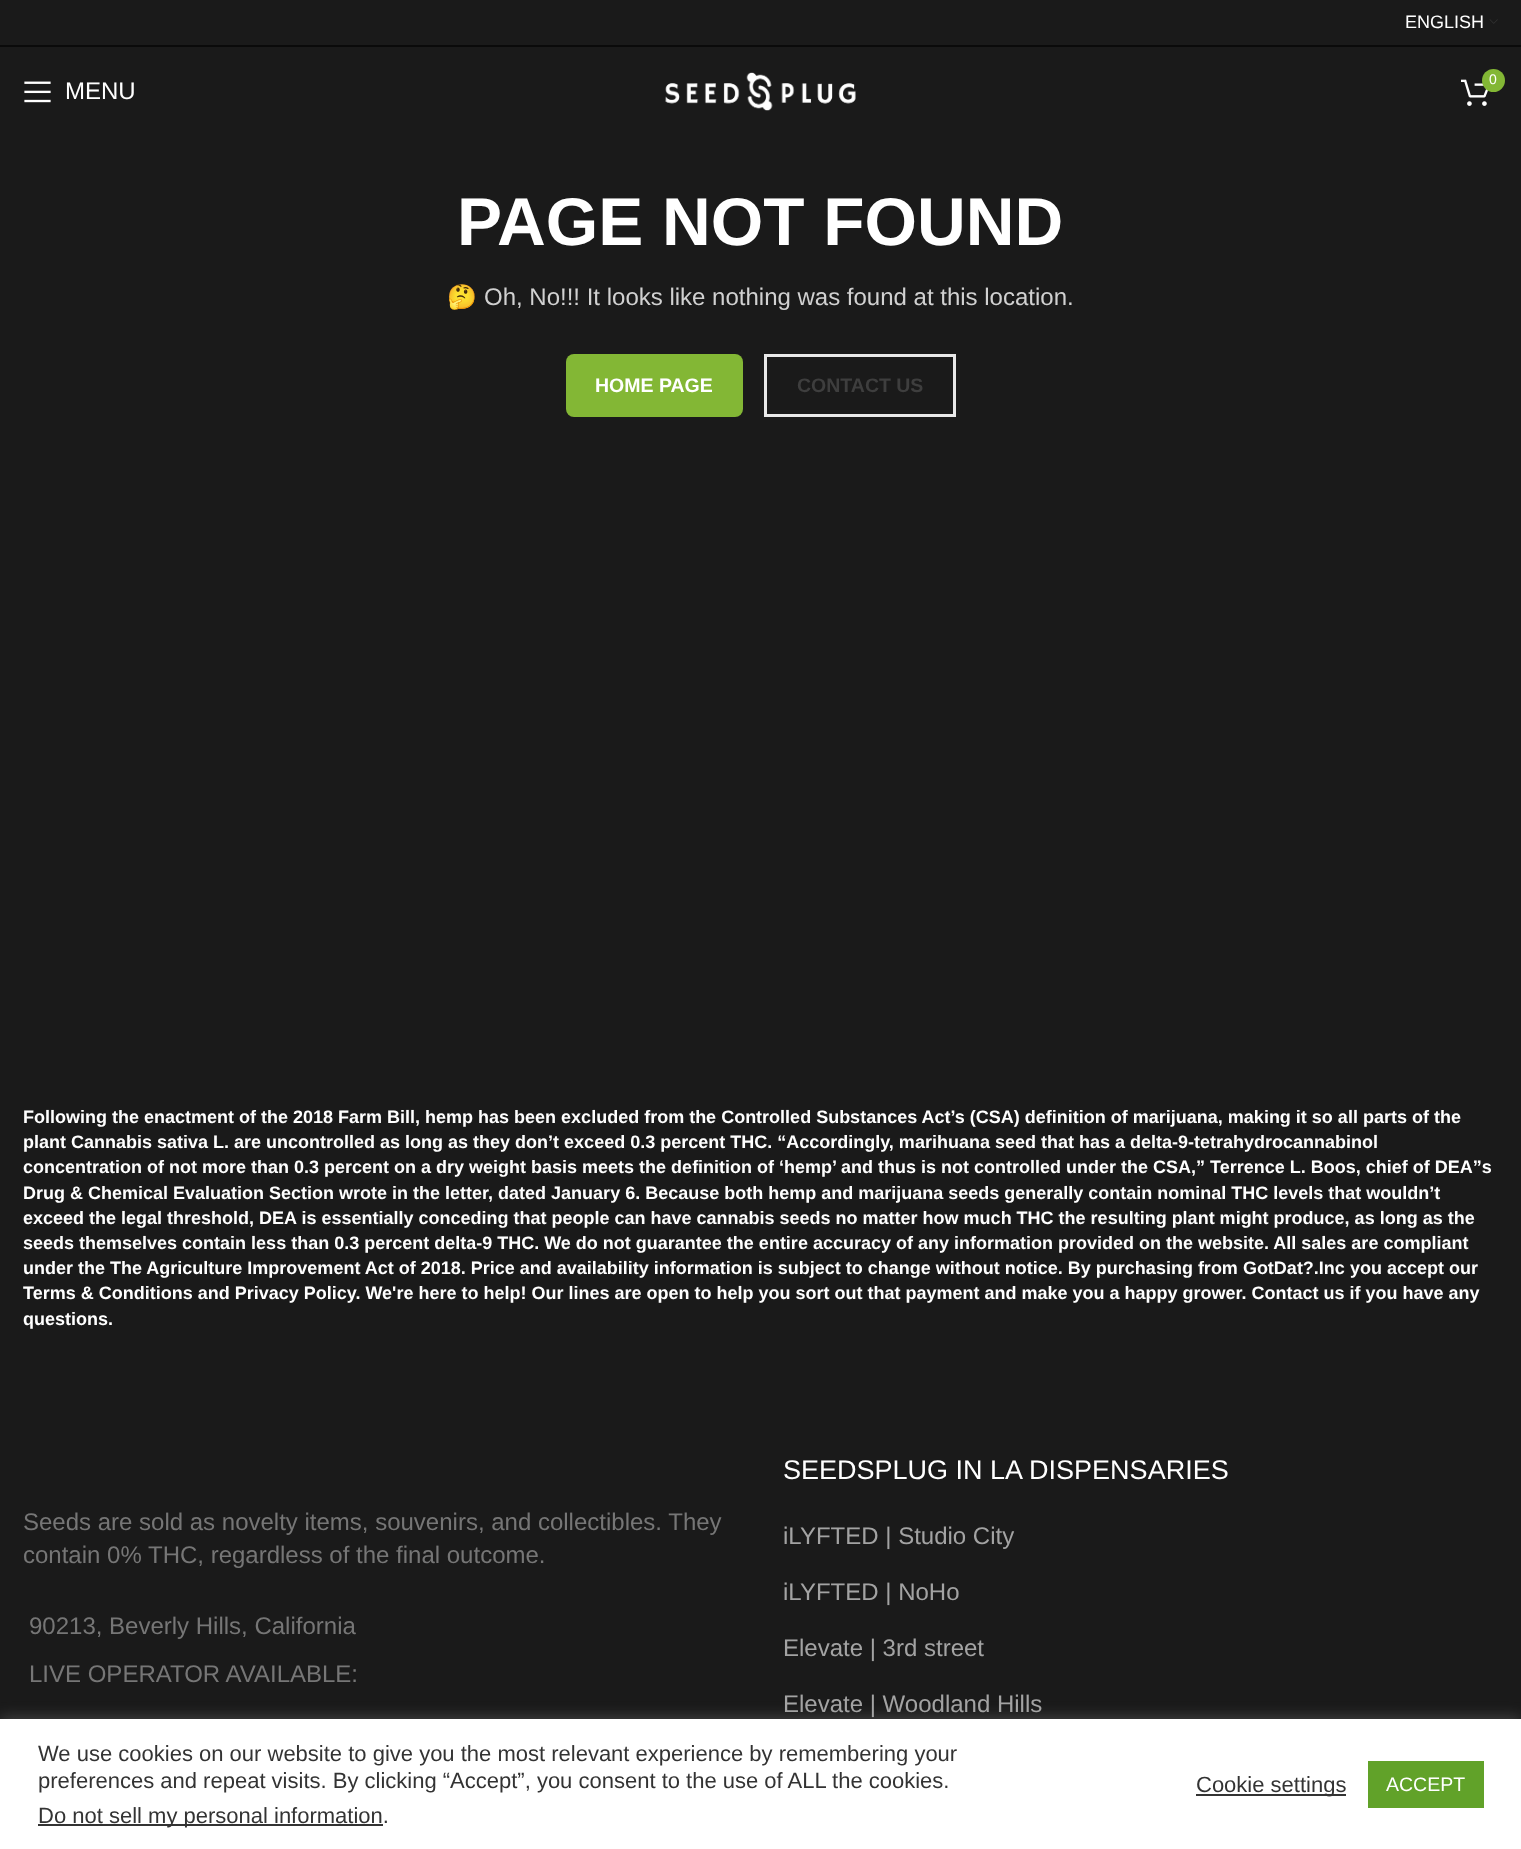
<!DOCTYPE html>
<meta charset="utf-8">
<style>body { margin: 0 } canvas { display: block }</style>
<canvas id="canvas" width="1521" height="1849"></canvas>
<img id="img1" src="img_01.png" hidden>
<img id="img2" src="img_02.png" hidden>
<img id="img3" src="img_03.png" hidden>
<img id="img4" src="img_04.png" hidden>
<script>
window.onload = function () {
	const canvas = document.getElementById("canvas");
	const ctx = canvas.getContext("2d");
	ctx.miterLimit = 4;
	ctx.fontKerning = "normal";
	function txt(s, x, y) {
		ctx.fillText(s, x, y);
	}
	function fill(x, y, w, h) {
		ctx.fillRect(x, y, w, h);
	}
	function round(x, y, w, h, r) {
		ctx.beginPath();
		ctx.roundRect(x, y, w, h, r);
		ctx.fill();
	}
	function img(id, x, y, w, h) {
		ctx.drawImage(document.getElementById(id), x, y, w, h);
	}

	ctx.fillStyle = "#1A1A1A";
	fill(0, 0, 1521, 1849);
	ctx.fillStyle = "#0A0A0A";
	fill(0, 45, 1521, 2);
	img("img1", 1489, 19, 9, 5);
	img("img2", 665, 72, 191, 39);
	img("img3", 1461, 79, 28, 27);
	ctx.fillStyle = "#83B735";
	ctx.beginPath();
	ctx.arc(1493.5, 80.5, 11.5, 0, Math.PI * 2);
	ctx.fill();
	img("img4", 24, 81, 27, 22);
	round(566, 354, 177, 63, 8);
	ctx.strokeStyle = "#E9E9E9";
	ctx.lineWidth = 3;
	ctx.strokeRect(765.5, 355.5, 189, 60);
	ctx.fillStyle = "rgba(172, 171, 171, 0.3)";
	ctx.filter = "blur(7.5px)";
	ctx.beginPath();
	ctx.rect(0, 1718, 1521, 130);
	ctx.fill();
	ctx.filter = "none";
	ctx.fillStyle = "#FFFFFF";
	fill(0, 1719, 1521, 130);
	ctx.fillStyle = "#333333";
	fill(38, 1824, 345, 2);
	fill(1196, 1794, 150, 2);
	ctx.fillStyle = "#61A229";
	fill(1368, 1761, 116, 47);
	ctx.font = "18px Liberation Sans";
	ctx.fillStyle = "#FFFFFF";
	txt("ENGLISH", 1405, 28);
	ctx.font = "14px Liberation Sans";
	txt("0", 1489, 84);
	ctx.font = "24px Liberation Sans";
	txt("MENU", 65, 99);
	ctx.font = "bold 67.5px Liberation Sans";
	txt("PAGE NOT FOUND", 457, 245);
	ctx.font = "24px Noto Color Emoji";
	ctx.fillStyle = "#D1D1D1";
	txt("🤔", 447, 305);
	ctx.font = "24px Liberation Sans";
	txt("Oh, No!!! It looks like nothing was found at this location.", 484, 305);
	ctx.font = "bold 19.5px Liberation Sans";
	ctx.fillStyle = "#FFFFFF";
	txt("HOME PAGE", 595, 392);
	ctx.fillStyle = "#3E3E3E";
	txt("CONTACT US", 797, 392);
	ctx.font = "bold 18px Liberation Sans";
	ctx.fillStyle = "#FFFFFF";
	txt("Following the enactment of the 2018 Farm Bill, hemp has been excluded from the Controlled Substances Act’s (CSA) definition of marijuana, making it so all parts of the", 23, 1123);
	txt("plant Cannabis sativa L. are uncontrolled as long as they don’t exceed 0.3 percent THC. “Accordingly, marihuana seed that has a delta-9-tetrahydrocannabinol", 23, 1148);
	txt("concentration of not more than 0.3 percent on a dry weight basis meets the definition of ‘hemp’ and thus is not controlled under the CSA,” Terrence L. Boos, chief of DEA”s", 23, 1173);
	txt("Drug & Chemical Evaluation Section wrote in the letter, dated January 6. Because both hemp and marijuana seeds generally contain nominal THC levels that wouldn’t", 23, 1199);
	txt("exceed the legal threshold, DEA is essentially conceding that people can have cannabis seeds no matter how much THC the resulting plant might produce, as long as the", 23, 1224);
	txt("seeds themselves contain less than 0.3 percent delta-9 THC. We do not guarantee the entire accuracy of any information provided on the website. All sales are compliant", 23, 1249);
	txt("under the The Agriculture Improvement Act of 2018. Price and availability information is subject to change without notice. By purchasing from GotDat?.Inc you accept our", 23, 1274);
	txt("Terms & Conditions and Privacy Policy. We're here to help! Our lines are open to help you sort out that payment and make you a happy grower. Contact us if you have any", 23, 1299);
	txt("questions.", 23, 1325);
	ctx.font = "24px Liberation Sans";
	ctx.fillStyle = "#767676";
	txt("Seeds are sold as novelty items, souvenirs, and collectibles. They", 23, 1530);
	txt("contain 0% THC, regardless of the final outcome.", 23, 1563);
	txt("90213, Beverly Hills, California", 29, 1634);
	txt("LIVE OPERATOR AVAILABLE:", 29, 1682);
	ctx.font = "27px Liberation Sans";
	ctx.fillStyle = "#FFFFFF";
	txt("SEEDSPLUG IN LA DISPENSARIES", 783, 1479);
	ctx.font = "24px Liberation Sans";
	ctx.fillStyle = "#A3A3A3";
	txt("iLYFTED | Studio City", 783, 1544);
	txt("iLYFTED | NoHo", 783, 1600);
	txt("Elevate | 3rd street", 783, 1656);
	txt("Elevate | Woodland Hills", 783, 1712);
	ctx.font = "22px Liberation Sans";
	ctx.fillStyle = "#333333";
	txt("We use cookies on our website to give you the most relevant experience by remembering your", 38, 1761);
	txt("preferences and repeat visits. By clicking “Accept”, you consent to the use of ALL the cookies.", 38, 1788);
	txt("Do not sell my personal information.", 38, 1823);
	txt("Cookie settings", 1196, 1792);
	ctx.font = "19.5px Liberation Sans";
	ctx.fillStyle = "#FFFFFF";
	txt("ACCEPT", 1386, 1791);
};
</script>
